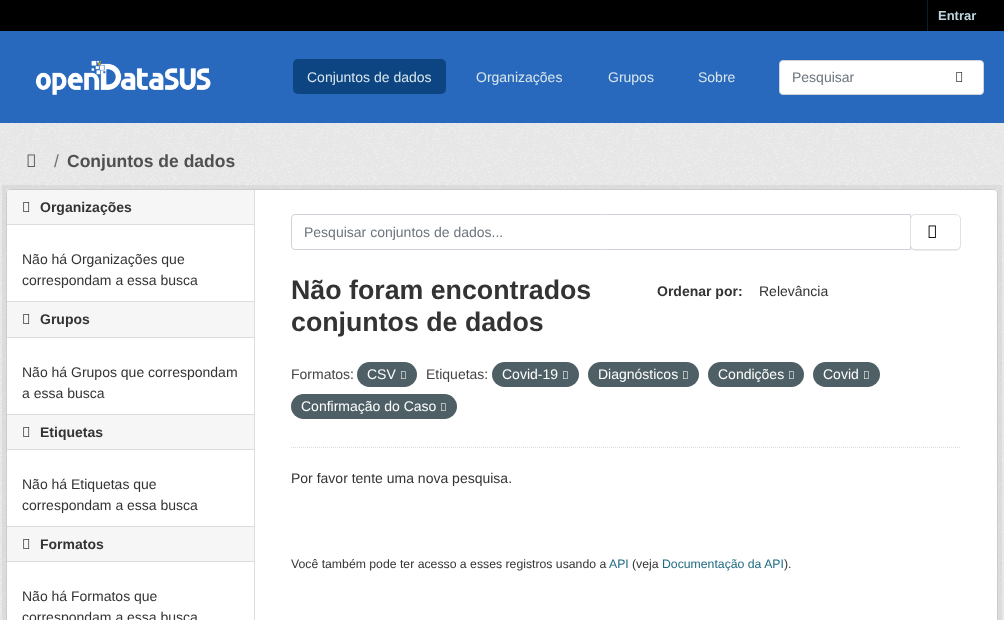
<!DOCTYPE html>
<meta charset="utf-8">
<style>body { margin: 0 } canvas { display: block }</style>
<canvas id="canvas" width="1004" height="620"></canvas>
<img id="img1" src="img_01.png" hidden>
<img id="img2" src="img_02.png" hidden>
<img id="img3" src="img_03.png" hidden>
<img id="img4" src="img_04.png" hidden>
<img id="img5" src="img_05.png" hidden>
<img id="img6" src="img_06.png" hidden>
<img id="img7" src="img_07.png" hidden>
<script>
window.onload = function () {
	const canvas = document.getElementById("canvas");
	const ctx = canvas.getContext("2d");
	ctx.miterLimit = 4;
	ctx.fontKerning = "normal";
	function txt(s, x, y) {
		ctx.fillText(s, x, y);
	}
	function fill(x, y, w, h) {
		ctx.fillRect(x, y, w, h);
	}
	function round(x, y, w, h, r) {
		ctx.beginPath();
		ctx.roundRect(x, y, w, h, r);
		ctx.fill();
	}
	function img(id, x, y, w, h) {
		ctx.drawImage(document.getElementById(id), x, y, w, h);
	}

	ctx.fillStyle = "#000000";
	fill(0, 0, 1004, 620);
	ctx.fillStyle = "#00232E";
	fill(927, 0, 1, 31);
	ctx.fillStyle = "#2969BD";
	fill(0, 31, 1004, 92);
	img("img1", 35, 60, 176, 35);
	ctx.fillStyle = "#0D4482";
	round(293, 59, 153, 35, 5);
	ctx.fillStyle = "#FFFFFF";
	ctx.beginPath();
	ctx.roundRect(779.5, 60.5, 204, 34, 3.5);
	ctx.fill();
	ctx.strokeStyle = "#CED4DA";
	ctx.stroke();
	img("img2", 956, 72, 7, 10);
	ctx.fillStyle = "#EEEEEE";
	fill(0, 123, 1004, 497);
	img("img3", 0, 123, 1004, 497);
	img("img4", 27, 154, 8, 13);
	ctx.strokeStyle = "rgba(0, 0, 0, 0.05)";
	ctx.lineWidth = 4;
	ctx.strokeRect(4, 187, 996, 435);
	ctx.fillStyle = "#FFFFFF";
	ctx.beginPath();
	ctx.roundRect(6.5, 189.5, 991, 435, 3.5);
	ctx.fill();
	ctx.strokeStyle = "#CCCCCC";
	ctx.lineWidth = 1;
	ctx.stroke();
	ctx.fillStyle = "#F6F6F6";
	ctx.beginPath();
	ctx.roundRect(7, 190, 247, 35, [3, 0, 0, 0]);
	ctx.fill();
	ctx.fillStyle = "#DDDDDD";
	fill(7, 224, 247, 1);
	img("img5", 23, 202, 7, 10);
	ctx.fillStyle = "#F6F6F6";
	fill(7, 302, 247, 35);
	ctx.fillStyle = "#DDDDDD";
	fill(7, 301, 247, 1);
	fill(7, 337, 247, 1);
	img("img5", 23, 314, 7, 10);
	ctx.fillStyle = "#F6F6F6";
	fill(7, 415, 247, 34);
	ctx.fillStyle = "#DDDDDD";
	fill(7, 414, 247, 1);
	fill(7, 449, 247, 1);
	img("img5", 23, 427, 7, 10);
	ctx.fillStyle = "#F6F6F6";
	fill(7, 527, 247, 34);
	ctx.fillStyle = "#DDDDDD";
	fill(7, 526, 247, 1);
	fill(7, 561, 247, 1);
	img("img5", 23, 539, 7, 10);
	fill(254, 190, 1, 430);
	ctx.beginPath();
	ctx.moveTo(291, 447.5);
	ctx.lineTo(961, 447.5);
	ctx.strokeStyle = "#DDDDDD";
	ctx.setLineDash([1, 1]);
	ctx.stroke();
	ctx.beginPath();
	ctx.roundRect(291.5, 214.5, 619, 35, [3.5, 0, 0, 3.5]);
	ctx.strokeStyle = "#CED4DA";
	ctx.setLineDash([]);
	ctx.stroke();
	ctx.fillStyle = "rgba(0, 0, 0, 0.07)";
	ctx.filter = "blur(0.5px)";
	ctx.beginPath();
	ctx.roundRect(910, 215, 51, 36, 5);
	ctx.fill();
	ctx.filter = "none";
	ctx.fillStyle = "#FFFFFF";
	ctx.beginPath();
	ctx.roundRect(910.5, 214.5, 50, 35, 4.5);
	ctx.fill();
	ctx.strokeStyle = "#DEE2E6";
	ctx.stroke();
	img("img6", 928, 225, 8, 13);
	ctx.fillStyle = "#4E5F65";
	round(357, 362, 60, 25, 12.5);
	img("img7", 401, 371, 5, 8);
	round(492, 362, 87, 25, 12.5);
	img("img7", 563, 371, 5, 8);
	round(588, 362, 111, 25, 12.5);
	img("img7", 683, 371, 5, 8);
	round(708, 362, 96, 25, 12.5);
	img("img7", 789, 371, 5, 8);
	round(813, 362, 67, 25, 12.5);
	img("img7", 864, 371, 5, 8);
	round(291, 394, 166, 25, 12.5);
	img("img7", 441, 403, 5, 8);
	ctx.font = "bold 13px Liberation Sans";
	ctx.fillStyle = "#BFD7DE";
	txt("Entrar", 938, 20);
	ctx.font = "14px Liberation Sans";
	ctx.fillStyle = "#D9E7EB";
	txt("Conjuntos de dados", 307, 82);
	txt("Organizações", 476, 82);
	txt("Grupos", 608, 82);
	txt("Sobre", 698, 82);
	ctx.fillStyle = "#6C757D";
	txt("Pesquisar", 792, 82);
	ctx.font = "17.5px Liberation Sans";
	txt("/", 54, 167);
	ctx.font = "bold 17.5px Liberation Sans";
	ctx.fillStyle = "#505050";
	txt("Conjuntos de dados", 67, 167);
	ctx.font = "bold 14px Liberation Sans";
	ctx.fillStyle = "#333333";
	txt("Organizações", 40, 212);
	ctx.font = "14px Liberation Sans";
	txt("Não há Organizações que", 22, 264);
	txt("correspondam a essa busca", 22, 285);
	ctx.font = "bold 14px Liberation Sans";
	txt("Grupos", 40, 324);
	ctx.font = "14px Liberation Sans";
	txt("Não há Grupos que correspondam", 22, 377);
	txt("a essa busca", 22, 398);
	ctx.font = "bold 14px Liberation Sans";
	txt("Etiquetas", 40, 437);
	ctx.font = "14px Liberation Sans";
	txt("Não há Etiquetas que", 22, 489);
	txt("correspondam a essa busca", 22, 510);
	ctx.font = "bold 14px Liberation Sans";
	txt("Formatos", 40, 549);
	ctx.font = "14px Liberation Sans";
	txt("Não há Formatos que", 22, 601);
	txt("correspondam a essa busca", 22, 622);
	ctx.fillStyle = "#6C757D";
	txt("Pesquisar conjuntos de dados...", 304, 237);
	ctx.font = "bold 26.75px Liberation Sans";
	ctx.fillStyle = "#333333";
	txt("Não foram encontrados", 291, 299);
	txt("conjuntos de dados", 291, 331);
	ctx.font = "bold 14px Liberation Sans";
	txt("Ordenar por:", 657, 296);
	ctx.font = "14px Liberation Sans";
	txt("Relevância", 759, 296);
	ctx.fillStyle = "#444444";
	txt("Formatos:", 291, 379);
	ctx.fillStyle = "#FFFFFF";
	txt("CSV", 367, 379);
	ctx.fillStyle = "#444444";
	txt("Etiquetas:", 426, 379);
	ctx.fillStyle = "#FFFFFF";
	txt("Covid-19", 502, 379);
	txt("Diagnósticos", 598, 379);
	txt("Condições", 718, 379);
	txt("Covid", 823, 379);
	txt("Confirmação do Caso", 301, 411);
	ctx.fillStyle = "#333333";
	txt("Por favor tente uma nova pesquisa.", 291, 483);
	ctx.font = "12.25px Liberation Sans";
	txt("Você também pode ter acesso a esses registros usando a", 291, 568);
	ctx.fillStyle = "#206B82";
	txt("API", 609, 568);
	ctx.fillStyle = "#333333";
	txt("(veja", 632, 568);
	ctx.fillStyle = "#206B82";
	txt("Documentação da API", 662, 568);
	ctx.fillStyle = "#333333";
	txt(").", 784, 568);
};
</script>
